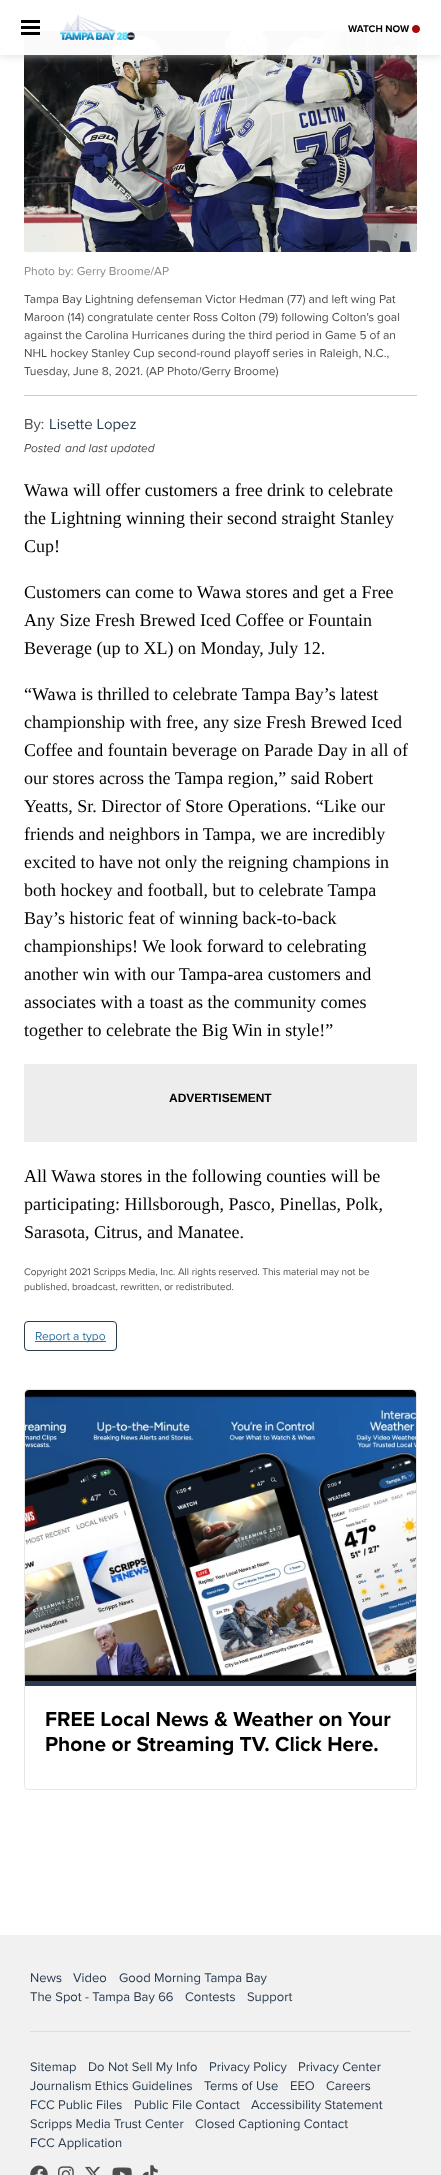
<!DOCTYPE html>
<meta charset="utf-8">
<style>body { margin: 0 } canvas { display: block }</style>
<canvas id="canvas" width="441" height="2175"></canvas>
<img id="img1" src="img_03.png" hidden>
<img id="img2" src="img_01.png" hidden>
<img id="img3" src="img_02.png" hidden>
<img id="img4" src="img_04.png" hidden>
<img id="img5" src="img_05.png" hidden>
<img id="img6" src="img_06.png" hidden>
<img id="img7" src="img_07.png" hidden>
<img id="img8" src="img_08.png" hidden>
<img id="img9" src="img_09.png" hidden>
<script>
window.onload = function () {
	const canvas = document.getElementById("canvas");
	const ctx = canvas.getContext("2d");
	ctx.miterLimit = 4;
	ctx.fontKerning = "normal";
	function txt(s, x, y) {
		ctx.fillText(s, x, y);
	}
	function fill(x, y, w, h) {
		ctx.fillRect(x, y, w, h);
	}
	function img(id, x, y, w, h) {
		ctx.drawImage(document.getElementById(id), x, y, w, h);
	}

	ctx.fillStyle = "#FFFFFF";
	fill(0, 0, 441, 2175);
	img("img1", 24, 31, 393, 221);
	ctx.save();
	ctx.beginPath();
	ctx.rect(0, 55, 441, 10);
	ctx.clip();
	ctx.fillStyle = "rgba(204, 204, 204, 0.8)";
	ctx.filter = "blur(5px)";
	ctx.beginPath();
	ctx.rect(0, 0, 441, 55);
	ctx.fill();
	ctx.filter = "none";
	ctx.restore();
	ctx.fillStyle = "rgba(255, 255, 255, 0.98)";
	fill(24, 31, 393, 24);
	ctx.fillStyle = "#000000";
	fill(21, 20, 19, 3);
	fill(21, 26, 19, 3);
	fill(21, 32, 19, 3);
	img("img2", 60, 14, 75, 26);
	img("img3", 412, 25, 8, 8);
	ctx.fillStyle = "#CCCCCC";
	fill(24, 395, 393, 1);
	ctx.fillStyle = "#EDEDED";
	fill(24, 1064, 393, 78);
	ctx.beginPath();
	ctx.roundRect(24.5, 1321.5, 92, 29, 3.5);
	ctx.strokeStyle = "#2A3C4F";
	ctx.stroke();
	ctx.fillStyle = "#2972A3";
	fill(35, 1341, 71, 1);
	ctx.beginPath();
	ctx.roundRect(24.5, 1389.5, 392, 400, 3.5);
	ctx.strokeStyle = "#E7E7E7";
	ctx.stroke();
	img("img4", 25, 1390, 391, 291);
	ctx.fillStyle = "#2A3C4F";
	fill(25, 1681, 391, 5);
	ctx.fillStyle = "#F1F1F1";
	fill(0, 1935, 441, 240);
	ctx.fillStyle = "#DDDDDD";
	fill(30, 2031, 381, 1);
	img("img5", 30, 2165, 18, 10);
	img("img6", 58, 2166, 16, 9);
	img("img7", 85, 2166, 15, 9);
	img("img8", 112, 2167, 20, 8);
	img("img9", 142, 2165, 16, 10);
	ctx.font = "bold 10px Proxima Nova";
	ctx.fillStyle = "#000000";
	txt("WATCH NOW", 348, 32);
	ctx.font = "12px Proxima Nova";
	ctx.fillStyle = "#888888";
	txt("Photo by: Gerry Broome/AP", 24, 275);
	ctx.fillStyle = "#4D4D4D";
	txt("Tampa Bay Lightning defenseman Victor Hedman (77) and left wing Pat", 24, 303);
	txt("Maroon (14) congratulate center Ross Colton (79) following Colton's goal", 24, 321);
	txt("against the Carolina Hurricanes during the third period in Game 5 of an", 24, 339);
	txt("NHL hockey Stanley Cup second-round playoff series in Raleigh, N.C.,", 24, 357);
	txt("Tuesday, June 8, 2021. (AP Photo/Gerry Broome)", 24, 375);
	ctx.font = "15px Proxima Nova";
	txt("By:", 24, 429);
	ctx.fillStyle = "#2A3C4F";
	txt("Lisette Lopez", 49, 429);
	ctx.font = "italic 12px Proxima Nova";
	ctx.fillStyle = "#4D4D4D";
	txt("Posted", 24, 452);
	txt("and last updated", 65, 452);
	ctx.font = "18px Liberation Serif";
	ctx.fillStyle = "#000000";
	txt("Wawa will offer customers a free drink to celebrate", 24, 496);
	txt("the Lightning winning their second straight Stanley", 24, 524);
	txt("Cup!", 24, 552);
	txt("Customers can come to Wawa stores and get a Free", 24, 598);
	txt("Any Size Fresh Brewed Iced Coffee or Fountain", 24, 626);
	txt("Beverage (up to XL) on Monday, July 12.", 24, 654);
	txt("“Wawa is thrilled to celebrate Tampa Bay’s latest", 24, 700);
	txt("championship with free, any size Fresh Brewed Iced", 24, 728);
	txt("Coffee and fountain beverage on Parade Day in all of", 24, 756);
	txt("our stores across the Tampa region,” said Robert", 24, 784);
	txt("Yeatts, Sr. Director of Store Operations. “Like our", 24, 812);
	txt("friends and neighbors in Tampa, we are incredibly", 24, 840);
	txt("excited to have not only the reigning champions in", 24, 868);
	txt("both hockey and football, but to celebrate Tampa", 24, 896);
	txt("Bay’s historic feat of winning back-to-back", 24, 924);
	txt("championships! We look forward to celebrating", 24, 952);
	txt("another win with our Tampa-area customers and", 24, 980);
	txt("associates with a toast as the community comes", 24, 1008);
	txt("together to celebrate the Big Win in style!”", 24, 1036);
	ctx.font = "bold 12px Liberation Sans";
	txt("ADVERTISEMENT", 169, 1102);
	ctx.font = "18px Liberation Serif";
	txt("All Wawa stores in the following counties will be", 24, 1182);
	txt("participating: Hillsborough, Pasco, Pinellas, Polk,", 24, 1210);
	txt("Sarasota, Citrus, and Manatee.", 24, 1238);
	ctx.font = "10px Proxima Nova";
	ctx.fillStyle = "#4D4D4D";
	txt("Copyright 2021 Scripps Media, Inc. All rights reserved. This material may not be", 24, 1275);
	txt("published, broadcast, rewritten, or redistributed.", 24, 1290);
	ctx.font = "12px Proxima Nova";
	ctx.fillStyle = "#2972A3";
	txt("Report a typo", 35, 1340);
	ctx.font = "bold 21px Proxima Nova";
	ctx.fillStyle = "#000000";
	txt("FREE Local News & Weather on Your", 45, 1726);
	txt("Phone or Streaming TV. Click Here.", 45, 1751);
	ctx.font = "13px Proxima Nova";
	ctx.fillStyle = "#2A3C4F";
	txt("News", 30, 1982);
	txt("Video", 73, 1982);
	txt("Good Morning Tampa Bay", 119, 1982);
	txt("The Spot - Tampa Bay 66", 30, 2001);
	txt("Contests", 185, 2001);
	txt("Support", 247, 2001);
	txt("Sitemap", 30, 2071);
	txt("Do Not Sell My Info", 88, 2071);
	txt("Privacy Policy", 209, 2071);
	txt("Privacy Center", 298, 2071);
	txt("Journalism Ethics Guidelines", 30, 2090);
	txt("Terms of Use", 204, 2090);
	txt("EEO", 290, 2090);
	txt("Careers", 326, 2090);
	txt("FCC Public Files", 30, 2109);
	txt("Public File Contact", 134, 2109);
	txt("Accessibility Statement", 251, 2109);
	txt("Scripps Media Trust Center", 30, 2128);
	txt("Closed Captioning Contact", 195, 2128);
	txt("FCC Application", 30, 2147);
};
</script>
